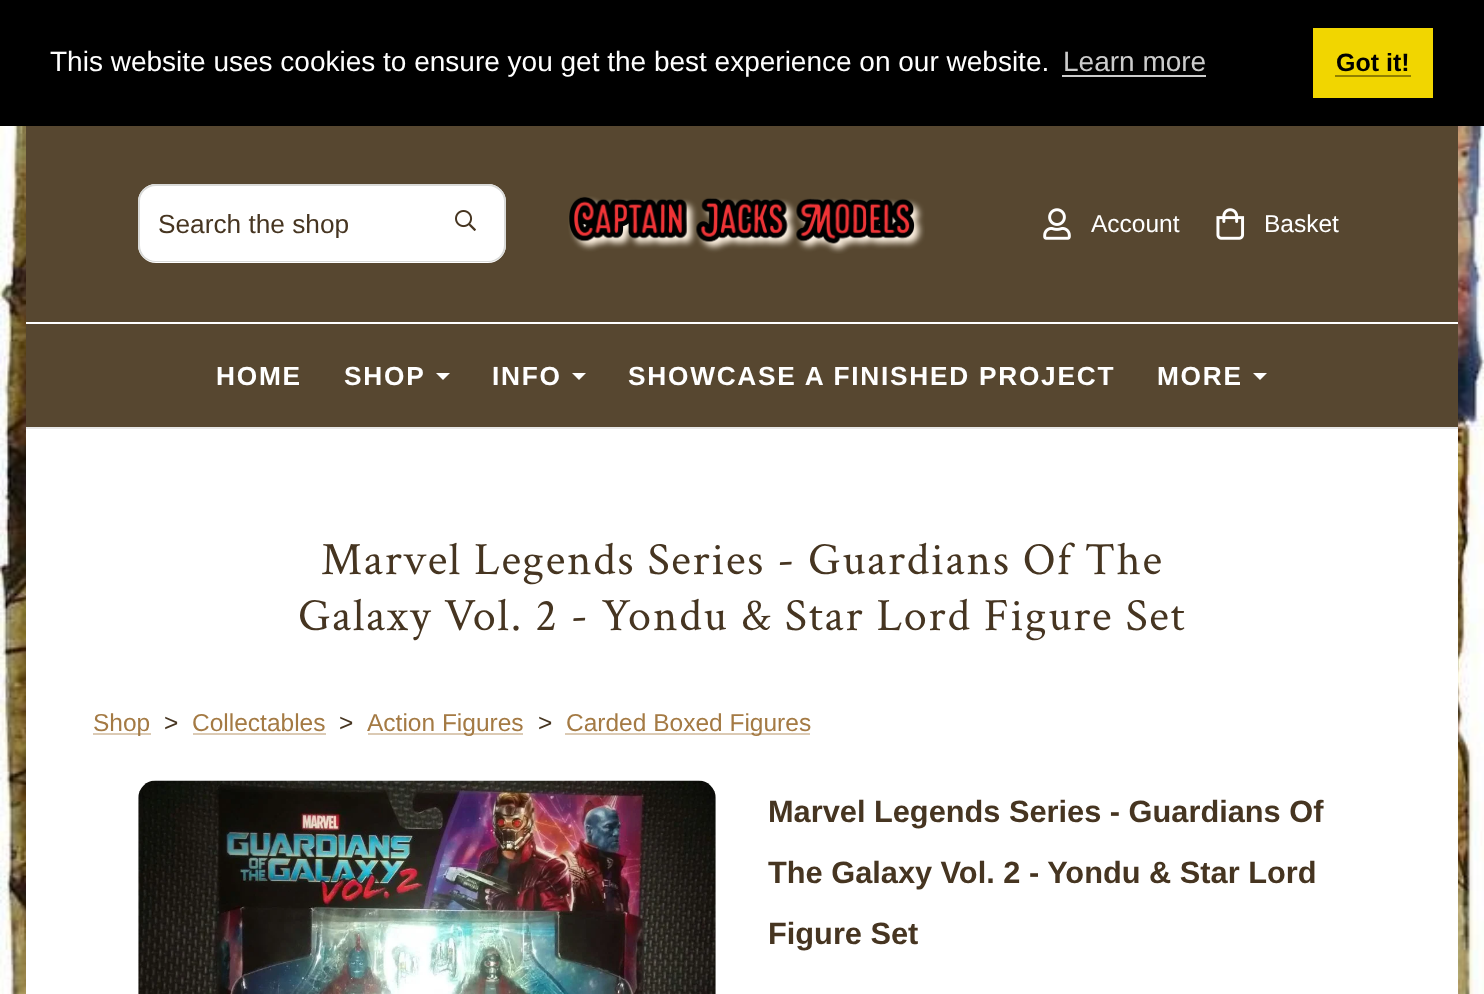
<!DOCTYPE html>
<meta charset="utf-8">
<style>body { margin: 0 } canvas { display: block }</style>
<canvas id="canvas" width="1484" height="994"></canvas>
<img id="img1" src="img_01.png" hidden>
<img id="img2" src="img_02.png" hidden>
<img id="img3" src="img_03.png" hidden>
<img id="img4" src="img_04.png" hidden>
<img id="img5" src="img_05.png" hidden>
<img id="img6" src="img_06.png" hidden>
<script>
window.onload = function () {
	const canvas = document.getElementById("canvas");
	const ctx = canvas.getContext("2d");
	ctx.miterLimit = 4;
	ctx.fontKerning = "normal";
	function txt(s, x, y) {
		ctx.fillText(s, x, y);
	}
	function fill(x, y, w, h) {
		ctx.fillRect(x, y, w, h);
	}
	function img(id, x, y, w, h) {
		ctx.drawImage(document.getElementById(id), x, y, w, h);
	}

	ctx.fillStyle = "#FFFFFF";
	fill(0, 0, 1484, 994);
	img("img1", 0, 126, 1484, 868);
	ctx.fillStyle = "#000000";
	fill(0, 0, 1484, 126);
	ctx.fillStyle = "#CCCCCC";
	fill(1062, 75, 144, 2);
	ctx.fillStyle = "#F1D600";
	fill(1313, 28, 120, 70);
	ctx.fillStyle = "#918000";
	fill(1335, 75, 76, 2);
	ctx.fillStyle = "#574730";
	fill(26, 126, 1432, 301);
	ctx.fillStyle = "#E8E8E8";
	fill(26, 427, 1432, 2);
	ctx.fillStyle = "#FFFFFF";
	ctx.beginPath();
	ctx.roundRect(138, 184, 289, 79, [18, 0, 0, 18]);
	ctx.fill();
	ctx.fillStyle = "#D9DAD8";
	ctx.beginPath();
	ctx.moveTo(156, 184);
	ctx.lineTo(427, 184);
	ctx.lineTo(427, 262);
	ctx.lineTo(156, 262);
	ctx.bezierCurveTo(146, 262, 138, 255, 138, 245);
	ctx.lineTo(138, 201);
	ctx.bezierCurveTo(138, 192, 146, 184, 156, 184);
	ctx.closePath();
	ctx.moveTo(156, 186);
	ctx.lineTo(427, 186);
	ctx.lineTo(427, 261);
	ctx.lineTo(156, 261);
	ctx.bezierCurveTo(147, 261, 140, 254, 140, 245);
	ctx.lineTo(140, 201);
	ctx.bezierCurveTo(140, 193, 147, 186, 156, 186);
	ctx.closePath();
	ctx.fill("evenodd");
	ctx.fillStyle = "#FFFFFF";
	ctx.beginPath();
	ctx.roundRect(427, 184, 79, 79, [0, 18, 18, 0]);
	ctx.fill();
	ctx.fillStyle = "#D9DAD8";
	ctx.beginPath();
	ctx.moveTo(427, 184);
	ctx.lineTo(488, 184);
	ctx.bezierCurveTo(498, 184, 506, 192, 506, 201);
	ctx.lineTo(506, 245);
	ctx.bezierCurveTo(506, 255, 498, 262, 488, 262);
	ctx.lineTo(427, 262);
	ctx.closePath();
	ctx.moveTo(427, 186);
	ctx.lineTo(488, 186);
	ctx.bezierCurveTo(497, 186, 504, 193, 504, 201);
	ctx.lineTo(504, 245);
	ctx.bezierCurveTo(504, 254, 497, 261, 488, 261);
	ctx.lineTo(427, 261);
	ctx.closePath();
	ctx.fill("evenodd");
	img("img2", 455, 210, 21, 21);
	img("img3", 568, 196, 357, 58);
	img("img4", 1043, 208, 28, 32);
	img("img5", 1216, 208, 29, 32);
	ctx.fillStyle = "#FFFFFF";
	fill(26, 322, 1432, 2);
	ctx.beginPath();
	ctx.moveTo(436, 373);
	ctx.lineTo(450, 373);
	ctx.lineTo(443, 380);
	ctx.closePath();
	ctx.fill();
	ctx.beginPath();
	ctx.moveTo(572, 373);
	ctx.lineTo(586, 373);
	ctx.lineTo(579, 380);
	ctx.closePath();
	ctx.fill();
	ctx.beginPath();
	ctx.moveTo(1253, 373);
	ctx.lineTo(1267, 373);
	ctx.lineTo(1260, 380);
	ctx.closePath();
	ctx.fill();
	fill(26, 429, 1432, 565);
	ctx.fillStyle = "#DBCAB4";
	fill(93, 733, 58, 2);
	fill(193, 733, 133, 2);
	fill(368, 733, 155, 2);
	fill(565, 733, 245, 2);
	img("img6", 138, 780, 578, 214);
	ctx.font = "28px Liberation Sans";
	ctx.fillStyle = "#FFFFFF";
	txt("This website uses cookies to ensure you get the best experience on our website.", 50, 71);
	ctx.fillStyle = "#CCCCCC";
	txt("Learn more", 1063, 71);
	ctx.font = "bold 25px Liberation Sans";
	ctx.fillStyle = "#000000";
	txt("Got it!", 1336, 71);
	ctx.save();
	ctx.beginPath();
	ctx.rect(158, 208, 245, 30);
	ctx.clip();
	ctx.font = "26.25px Liberation Sans";
	ctx.fillStyle = "#463521";
	txt("Search the shop", 158, 233);
	ctx.restore();
	ctx.font = "24.5px Liberation Sans";
	ctx.fillStyle = "#FFFFFF";
	txt("Account", 1091, 232);
	txt("Basket", 1264, 232);
	ctx.letterSpacing = "1.75px";
	ctx.font = "bold 26.25px Liberation Sans";
	txt("HOME", 216, 385);
	txt("SHOP", 344, 385);
	txt("INFO", 492, 385);
	txt("SHOWCASE A FINISHED PROJECT", 628, 385);
	txt("MORE", 1157, 385);
	ctx.font = "46.25px Crimson Text";
	ctx.fillStyle = "#463521";
	txt("Marvel Legends Series - Guardians Of The", 321, 574);
	txt("Galaxy Vol. 2 - Yondu & Star Lord Figure Set", 298, 630);
	ctx.letterSpacing = "0px";
	ctx.font = "24.5px Liberation Sans";
	ctx.fillStyle = "#A47A44";
	txt("Shop", 93, 731);
	ctx.fillStyle = "#463521";
	txt(">", 164, 731);
	ctx.fillStyle = "#A47A44";
	txt("Collectables", 192, 731);
	ctx.fillStyle = "#463521";
	txt(">", 339, 731);
	ctx.fillStyle = "#A47A44";
	txt("Action Figures", 367, 731);
	ctx.fillStyle = "#463521";
	txt(">", 538, 731);
	ctx.fillStyle = "#A47A44";
	txt("Carded Boxed Figures", 566, 731);
	ctx.font = "bold 30.75px Liberation Sans";
	ctx.fillStyle = "#463521";
	txt("Marvel Legends Series - Guardians Of", 768, 822);
	txt("The Galaxy Vol. 2 - Yondu & Star Lord", 768, 883);
	txt("Figure Set", 768, 944);
};
</script>
